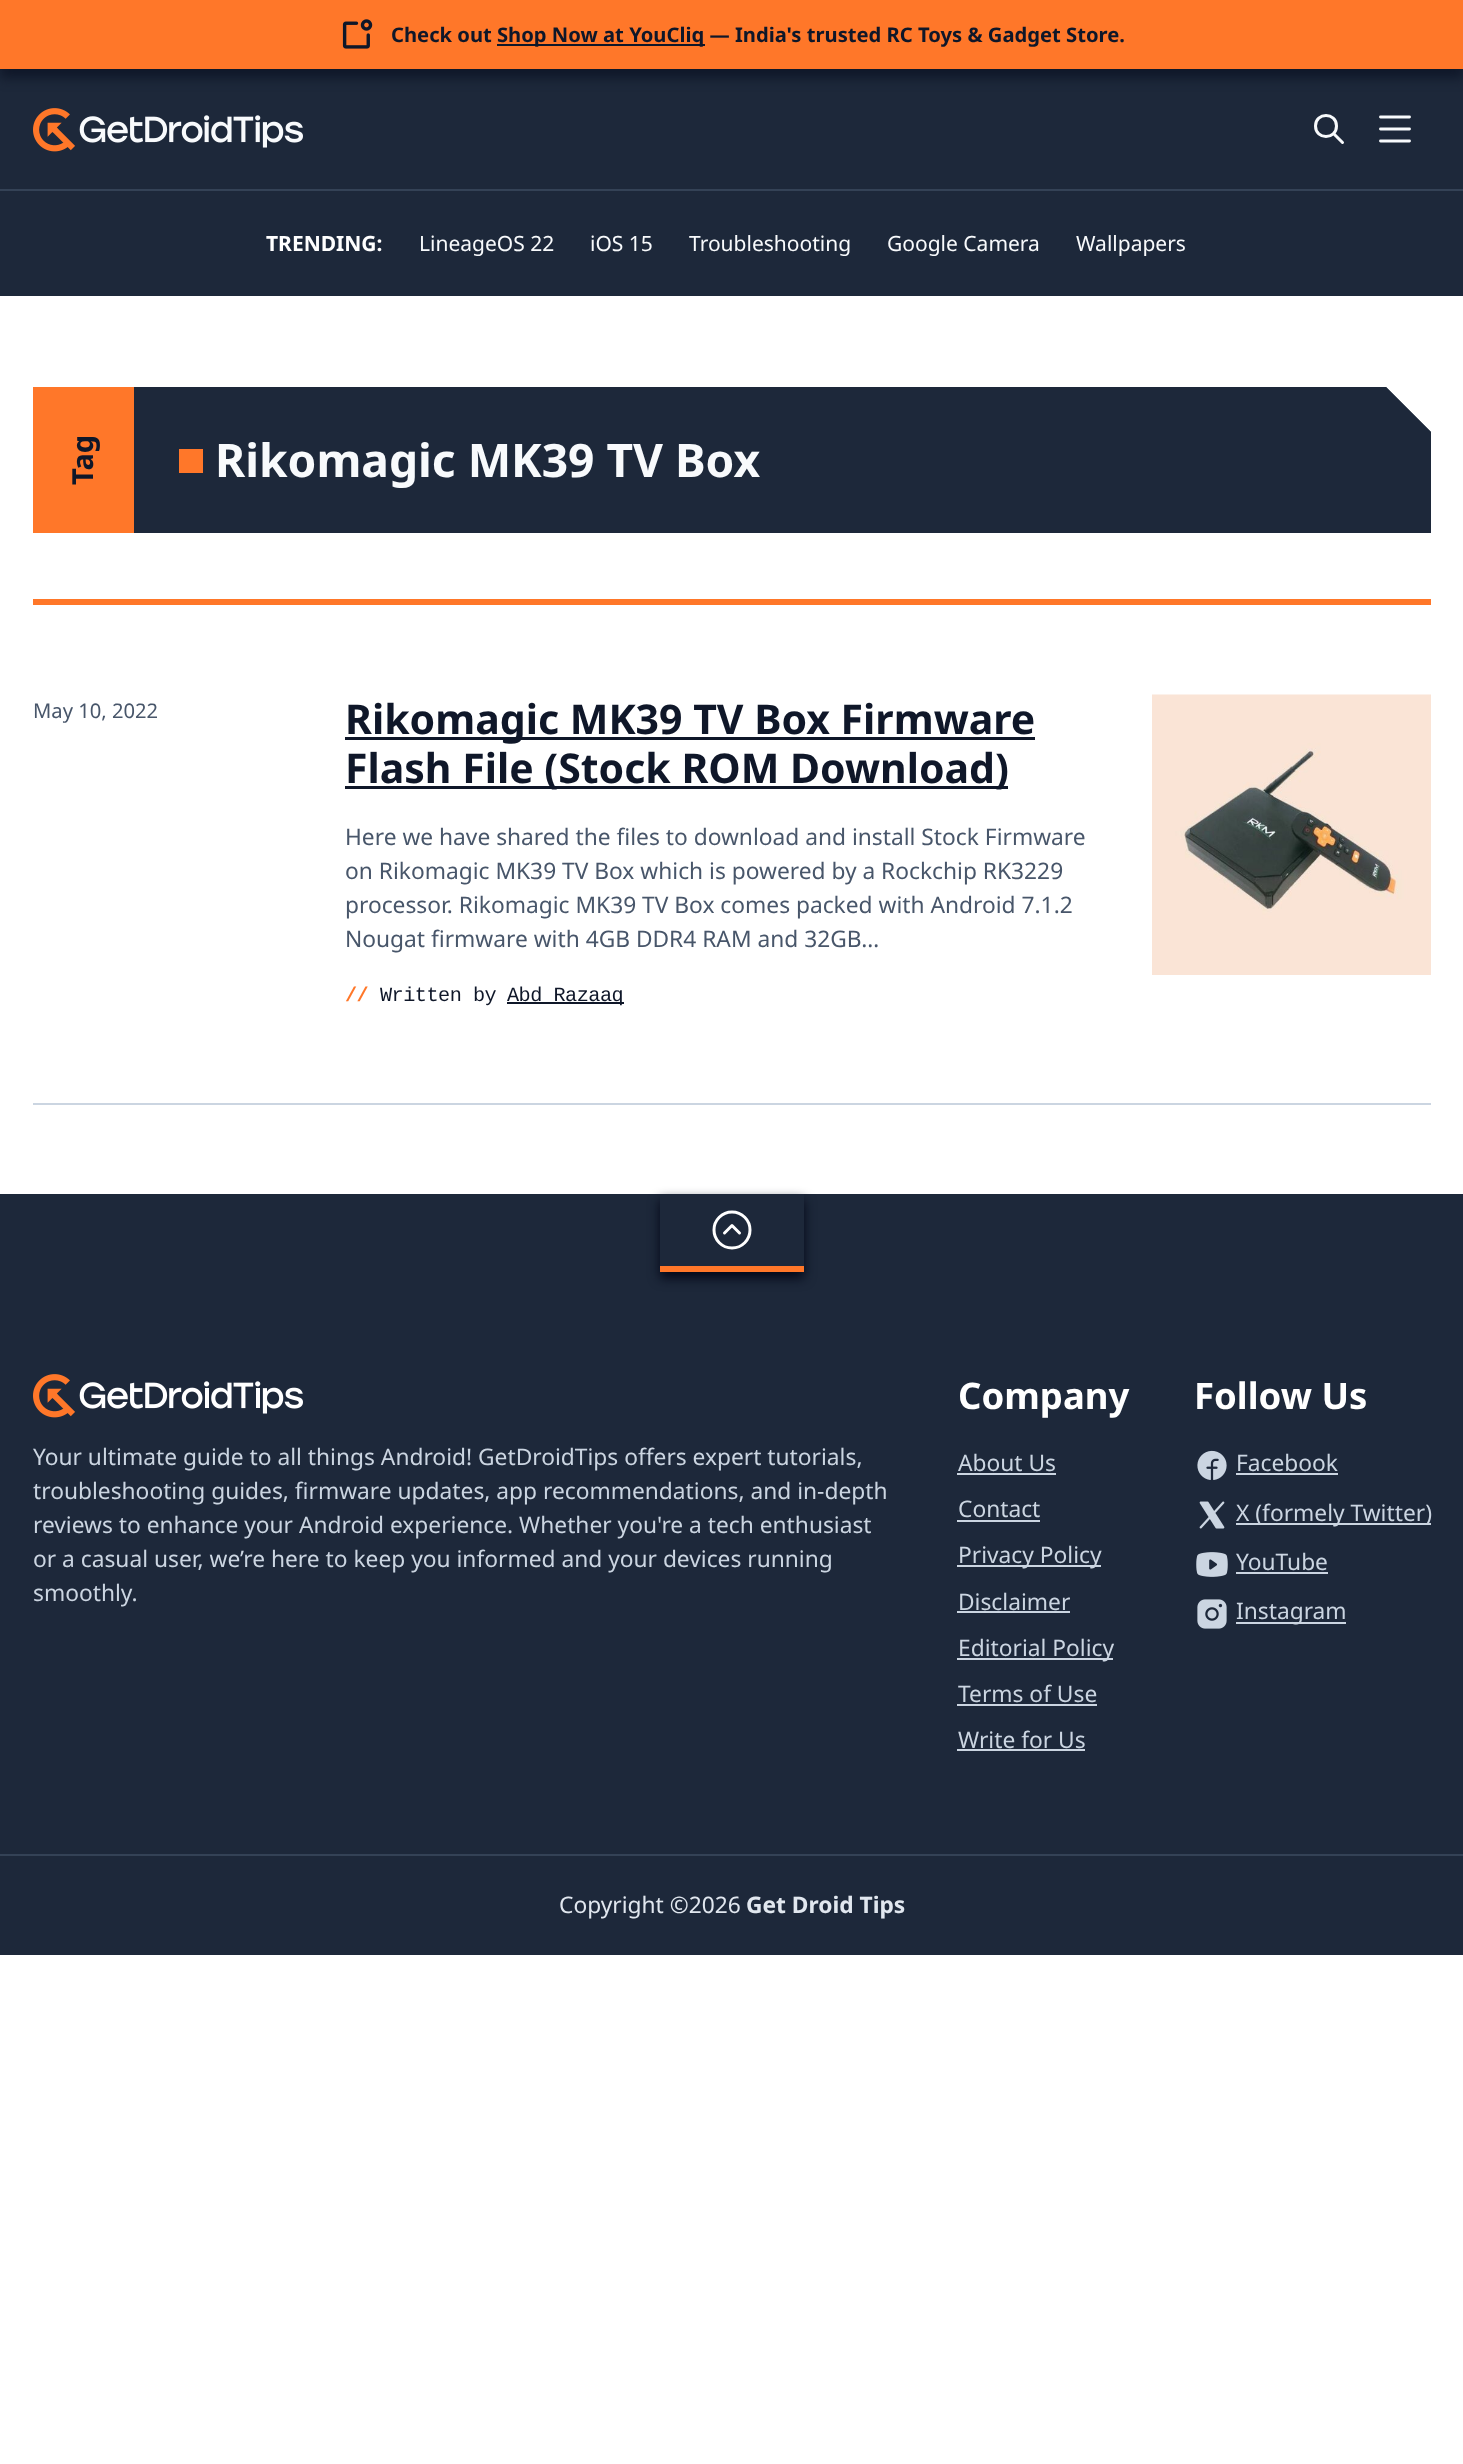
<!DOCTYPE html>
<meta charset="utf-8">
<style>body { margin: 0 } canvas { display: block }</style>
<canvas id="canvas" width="1463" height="2464"></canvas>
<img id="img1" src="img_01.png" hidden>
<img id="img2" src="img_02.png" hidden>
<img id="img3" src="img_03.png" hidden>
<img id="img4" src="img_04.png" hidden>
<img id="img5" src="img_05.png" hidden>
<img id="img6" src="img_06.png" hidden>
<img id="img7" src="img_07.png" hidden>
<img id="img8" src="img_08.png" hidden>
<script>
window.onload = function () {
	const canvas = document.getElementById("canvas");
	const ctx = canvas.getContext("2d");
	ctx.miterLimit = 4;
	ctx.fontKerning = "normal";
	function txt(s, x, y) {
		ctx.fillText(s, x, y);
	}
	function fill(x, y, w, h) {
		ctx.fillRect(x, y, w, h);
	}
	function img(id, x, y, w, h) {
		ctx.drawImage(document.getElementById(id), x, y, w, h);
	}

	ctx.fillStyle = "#FFFFFF";
	fill(0, 0, 1463, 2464);
	ctx.fillStyle = "#1D283A";
	fill(0, 69, 1463, 227);
	ctx.fillStyle = "#0F1729";
	ctx.filter = "blur(6px)";
	ctx.beginPath();
	ctx.rect(0, 9, 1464, 69);
	ctx.fill();
	ctx.filter = "none";
	ctx.fillStyle = "#FF7729";
	fill(0, 0, 1463, 69);
	img("img1", 342, 19, 31, 30);
	ctx.fillStyle = "#0F1729";
	fill(497, 44, 208, 2);
	img("img2", 33, 108, 270, 44);
	ctx.beginPath();
	ctx.moveTo(1315.5, 126);
	ctx.bezierCurveTo(1315.5, 140, 1336.5, 140, 1336.5, 126);
	ctx.bezierCurveTo(1336.5, 112, 1315.5, 112, 1315.5, 126);
	ctx.moveTo(1342.5, 142.5);
	ctx.lineTo(1333.5, 133.5);
	ctx.strokeStyle = "#F8FAFC";
	ctx.lineWidth = 3;
	ctx.lineCap = "round";
	ctx.lineJoin = "round";
	ctx.stroke();
	ctx.beginPath();
	ctx.moveTo(1380.5, 117);
	ctx.lineTo(1409.5, 117);
	ctx.moveTo(1380.5, 129);
	ctx.lineTo(1409.5, 129);
	ctx.moveTo(1409.5, 141);
	ctx.lineTo(1380.5, 141);
	ctx.lineWidth = 2.9;
	ctx.lineJoin = "miter";
	ctx.stroke();
	ctx.fillStyle = "#344256";
	fill(0, 189, 1463, 2);
	ctx.fillStyle = "#FF7729";
	fill(33, 599, 1398, 6);
	fill(33, 387, 101, 146);
	ctx.fillStyle = "#1D283A";
	fill(134, 387, 1297, 146);
	ctx.fillStyle = "#FFFFFF";
	ctx.beginPath();
	ctx.moveTo(1431, 387);
	ctx.lineTo(1431, 432);
	ctx.lineTo(1386, 387);
	ctx.closePath();
	ctx.fill();
	ctx.fillStyle = "#1D283A";
	ctx.beginPath();
	ctx.moveTo(1431, 432);
	ctx.lineTo(1386, 432);
	ctx.lineTo(1386, 387);
	ctx.closePath();
	ctx.fill();
	ctx.fillStyle = "#FF7729";
	fill(179, 449, 24, 24);
	ctx.fillStyle = "#CBD5E1";
	fill(33, 1103, 1398, 2);
	ctx.fillStyle = "#0F1729";
	fill(345, 737, 690, 3);
	fill(345, 786, 663, 3);
	fill(507, 1002, 117, 2);
	img("img3", 1152, 694, 279, 281);
	ctx.fillStyle = "#1D283A";
	fill(0, 1194, 1463, 761);
	ctx.save();
	ctx.beginPath();
	ctx.moveTo(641, 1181);
	ctx.lineTo(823, 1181);
	ctx.lineTo(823, 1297);
	ctx.lineTo(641, 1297);
	ctx.closePath();
	ctx.moveTo(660, 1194);
	ctx.lineTo(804, 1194);
	ctx.lineTo(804, 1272);
	ctx.lineTo(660, 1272);
	ctx.closePath();
	ctx.clip("evenodd");
	ctx.fillStyle = "#020617";
	ctx.filter = "blur(6px)";
	ctx.beginPath();
	ctx.rect(660, 1200, 144, 78);
	ctx.fill();
	ctx.filter = "none";
	ctx.restore();
	ctx.fillStyle = "#FF7729";
	fill(660, 1266, 144, 6);
	ctx.beginPath();
	ctx.arc(732, 1230, 18, 0, Math.PI * 2);
	ctx.strokeStyle = "#FFFFFF";
	ctx.lineWidth = 3;
	ctx.stroke();
	ctx.beginPath();
	ctx.moveTo(724.5, 1233);
	ctx.lineTo(732, 1225.5);
	ctx.lineTo(739.5, 1233);
	ctx.lineJoin = "round";
	ctx.stroke();
	img("img4", 33, 1374, 270, 44);
	ctx.fillStyle = "#CBD5E1";
	fill(957, 1473, 99, 2);
	fill(957, 1520, 83, 2);
	fill(957, 1565, 144, 2);
	fill(957, 1611, 113, 2);
	fill(957, 1658, 156, 2);
	fill(957, 1704, 140, 2);
	fill(957, 1749, 128, 2);
	img("img5", 1197, 1450, 30, 30);
	fill(1236, 1473, 102, 2);
	img("img6", 1199, 1501, 26, 28);
	fill(1236, 1523, 195, 2);
	img("img7", 1196, 1552, 32, 25);
	fill(1236, 1572, 92, 2);
	img("img8", 1197, 1599, 30, 30);
	fill(1236, 1622, 110, 2);
	ctx.fillStyle = "#344256";
	fill(0, 1854, 1463, 2);
	ctx.font = "bold 20.2px Noto Sans";
	ctx.fillStyle = "#0F1729";
	txt("Check out", 391, 42);
	txt("Shop Now at YouCliq — India's trusted RC Toys & Gadget Store.", 497, 42);
	ctx.font = "bold 21px Noto Sans";
	ctx.fillStyle = "#FFFFFF";
	txt("TRENDING:", 266, 251);
	ctx.font = "21px Noto Sans";
	ctx.fillStyle = "#F8FAFC";
	txt("LineageOS 22", 419, 251);
	txt("iOS 15", 590, 251);
	txt("Troubleshooting", 689, 251);
	txt("Google Camera", 887, 251);
	txt("Wallpapers", 1076, 251);
	ctx.font = "bold 29px Noto Sans";
	ctx.fillStyle = "#0F1729";
	ctx.save();
	ctx.translate(93, 485);
	ctx.rotate(-90 * Math.PI / 180);
	ctx.fillText("Tag", 0, 0);
	ctx.restore();
	ctx.font = "bold 46.1px Noto Sans";
	ctx.fillStyle = "#F8FAFC";
	txt("Rikomagic MK39 TV Box", 215, 477);
	ctx.font = "20.2px Noto Sans";
	ctx.fillStyle = "#48566A";
	txt("May 10, 2022", 33, 718);
	ctx.font = "bold 41px Noto Sans";
	ctx.fillStyle = "#0F1729";
	txt("Rikomagic MK39 TV Box Firmware", 345, 734);
	txt("Flash File (Stock ROM Download)", 345, 783);
	ctx.font = "22.75px Noto Sans";
	ctx.fillStyle = "#48566A";
	txt("Here we have shared the files to download and install Stock Firmware", 345, 845);
	txt("on Rikomagic MK39 TV Box which is powered by a Rockchip RK3229", 345, 879);
	txt("processor. Rikomagic MK39 TV Box comes packed with Android 7.1.2", 345, 913);
	txt("Nougat firmware with 4GB DDR4 RAM and 32GB…", 345, 947);
	ctx.letterSpacing = "-0.5px";
	ctx.font = "bold 20.2px Liberation Mono";
	ctx.fillStyle = "#FF7729";
	txt("//", 345, 1001);
	ctx.font = "20.2px Liberation Mono";
	ctx.fillStyle = "#0F1729";
	txt("Written by", 380, 1001);
	txt("Abd Razaaq", 507, 1001);
	ctx.letterSpacing = "0px";
	ctx.font = "22.75px Noto Sans";
	ctx.fillStyle = "#CBD5E1";
	txt("Your ultimate guide to all things Android! GetDroidTips offers expert tutorials,", 33, 1465);
	txt("troubleshooting guides, firmware updates, app recommendations, and in-depth", 33, 1499);
	txt("reviews to enhance your Android experience. Whether you're a tech enthusiast", 33, 1533);
	txt("or a casual user, we’re here to keep you informed and your devices running", 33, 1567);
	txt("smoothly.", 33, 1601);
	ctx.font = "bold 36.5px Noto Sans";
	ctx.fillStyle = "#FFFFFF";
	txt("Company", 958, 1409);
	ctx.font = "22.75px Noto Sans";
	ctx.fillStyle = "#CBD5E1";
	txt("About Us", 958, 1471);
	txt("Contact", 958, 1517);
	txt("Privacy Policy", 958, 1563);
	txt("Disclaimer", 958, 1610);
	txt("Editorial Policy", 958, 1656);
	txt("Terms of Use", 958, 1702);
	txt("Write for Us", 958, 1748);
	ctx.font = "bold 36.5px Noto Sans";
	ctx.fillStyle = "#FFFFFF";
	txt("Follow Us", 1194, 1409);
	ctx.font = "22.75px Noto Sans";
	ctx.fillStyle = "#CBD5E1";
	txt("Facebook", 1236, 1471);
	txt("X (formely Twitter)", 1236, 1521);
	txt("YouTube", 1236, 1570);
	txt("Instagram", 1236, 1619);
	ctx.fillStyle = "#E1E7EF";
	txt("Copyright ©2026", 559, 1913);
	ctx.font = "bold 22.75px Noto Sans";
	txt("Get Droid Tips", 746, 1913);
};
</script>
